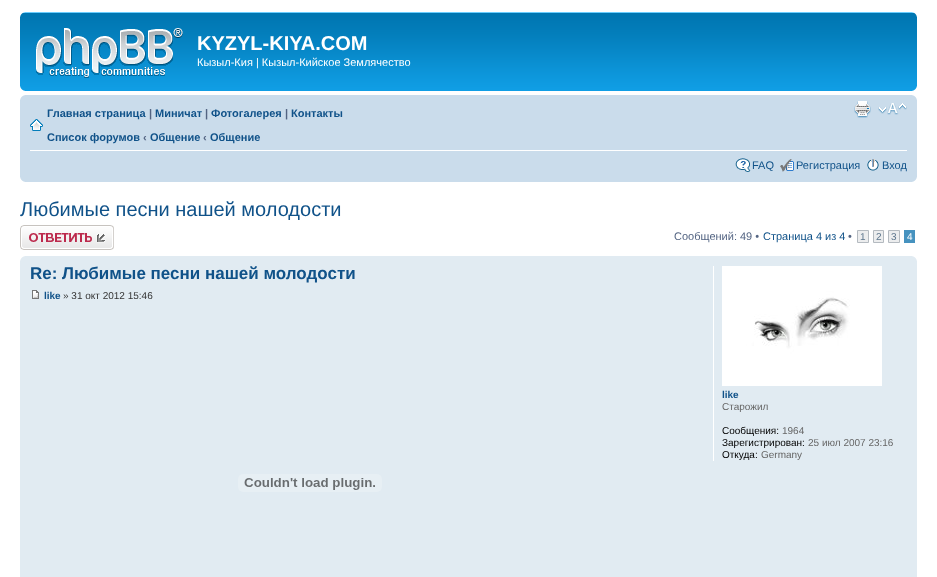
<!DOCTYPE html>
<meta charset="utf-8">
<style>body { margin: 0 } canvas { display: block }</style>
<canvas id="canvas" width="937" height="577"></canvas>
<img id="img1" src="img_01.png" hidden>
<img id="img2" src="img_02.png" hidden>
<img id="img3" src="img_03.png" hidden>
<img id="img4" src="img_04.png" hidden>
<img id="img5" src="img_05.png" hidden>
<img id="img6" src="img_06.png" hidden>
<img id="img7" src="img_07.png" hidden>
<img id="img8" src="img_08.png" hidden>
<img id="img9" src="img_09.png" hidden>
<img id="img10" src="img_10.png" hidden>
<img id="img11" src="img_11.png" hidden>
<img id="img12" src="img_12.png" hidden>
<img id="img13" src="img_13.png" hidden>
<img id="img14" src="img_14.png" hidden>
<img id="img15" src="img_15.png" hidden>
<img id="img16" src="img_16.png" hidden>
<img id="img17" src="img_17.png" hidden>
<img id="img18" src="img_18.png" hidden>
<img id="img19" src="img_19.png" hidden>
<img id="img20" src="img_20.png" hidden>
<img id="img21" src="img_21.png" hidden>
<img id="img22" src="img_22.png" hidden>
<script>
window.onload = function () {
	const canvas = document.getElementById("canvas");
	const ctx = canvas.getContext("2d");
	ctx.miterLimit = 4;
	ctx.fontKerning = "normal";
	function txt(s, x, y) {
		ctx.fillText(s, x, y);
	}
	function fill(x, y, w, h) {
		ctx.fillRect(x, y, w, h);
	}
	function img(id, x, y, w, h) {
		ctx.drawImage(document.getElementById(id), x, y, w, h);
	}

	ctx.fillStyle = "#FFFFFF";
	fill(0, 0, 937, 577);
	img("img1", 20, 12, 897, 79);
	img("img2", 20, 12, 5, 5);
	img("img3", 912, 12, 5, 5);
	img("img4", 36, 28, 147, 50);
	img("img5", 20, 86, 5, 5);
	img("img6", 912, 86, 5, 5);
	ctx.fillStyle = "#CADCEB";
	fill(20, 95, 897, 87);
	img("img7", 20, 95, 5, 5);
	img("img8", 912, 95, 5, 5);
	ctx.fillStyle = "#FFFFFF";
	fill(30, 150, 877, 1);
	img("img9", 30, 119, 13, 12);
	img("img10", 854, 101, 17, 17);
	img("img11", 878, 103, 29, 12);
	img("img12", 735, 158, 16, 14);
	img("img13", 780, 159, 14, 13);
	img("img14", 867, 159, 12, 12);
	img("img15", 20, 177, 5, 5);
	img("img16", 912, 177, 5, 5);
	img("img17", 20, 225, 94, 25);
	ctx.fillStyle = "#ECEDEE";
	ctx.beginPath();
	ctx.rect(857.5, 230.5, 11, 12);
	ctx.fill();
	ctx.strokeStyle = "#B4BAC0";
	ctx.stroke();
	ctx.beginPath();
	ctx.rect(873.5, 230.5, 10, 12);
	ctx.fill();
	ctx.stroke();
	ctx.beginPath();
	ctx.rect(888.5, 230.5, 11, 12);
	ctx.fill();
	ctx.stroke();
	ctx.fillStyle = "#4692BF";
	fill(904, 230, 11, 13);
	ctx.fillStyle = "#E1EBF2";
	fill(20, 256, 897, 321);
	img("img18", 20, 256, 5, 5);
	img("img19", 912, 256, 5, 5);
	img("img20", 32, 290, 7, 9);
	img("img21", 238, 474, 144, 18);
	ctx.fillStyle = "#FFFFFF";
	fill(713, 266, 1, 195);
	img("img22", 722, 266, 160, 120);
	ctx.font = "bold 20px Liberation Sans";
	txt("KYZYL-KIYA.COM", 197, 50);
	ctx.font = "11px Liberation Sans";
	txt("Кызыл-Кия | Кызыл-Кийское Землячество", 197, 66);
	ctx.font = "bold 11px Liberation Sans";
	ctx.fillStyle = "#105289";
	txt("Главная страница", 47, 117);
	ctx.fillStyle = "#536482";
	txt("|", 149, 117);
	ctx.fillStyle = "#105289";
	txt("Миничат", 155, 117);
	ctx.fillStyle = "#536482";
	txt("|", 205, 117);
	ctx.fillStyle = "#105289";
	txt("Фотогалерея", 211, 117);
	ctx.fillStyle = "#536482";
	txt("|", 285, 117);
	ctx.fillStyle = "#105289";
	txt("Контакты", 291, 117);
	txt("Список форумов", 47, 141);
	ctx.fillStyle = "#536482";
	txt("‹", 143, 141);
	ctx.fillStyle = "#105289";
	txt("Общение", 150, 141);
	ctx.fillStyle = "#536482";
	txt("‹", 203, 141);
	ctx.fillStyle = "#105289";
	txt("Общение", 210, 141);
	ctx.font = "11px Liberation Sans";
	txt("FAQ", 752, 169);
	txt("Регистрация", 796, 169);
	txt("Вход", 882, 169);
	ctx.font = "20px Liberation Sans";
	txt("Любимые песни нашей молодости", 20, 216);
	ctx.font = "11px Liberation Sans";
	ctx.fillStyle = "#536482";
	txt("Сообщений: 49 •", 674, 240);
	ctx.fillStyle = "#105289";
	txt("Страница 4 из 4", 763, 240);
	ctx.fillStyle = "#536482";
	txt("•", 848, 240);
	ctx.font = "10px Liberation Sans";
	ctx.fillStyle = "#5C758C";
	txt("1", 860, 240);
	txt("2", 876, 240);
	txt("3", 891, 240);
	ctx.fillStyle = "#FFFFFF";
	txt("4", 907, 240);
	ctx.font = "bold 17px Liberation Sans";
	ctx.fillStyle = "#105289";
	txt("Re: Любимые песни нашей молодости", 30, 279);
	ctx.font = "bold 10px Liberation Sans";
	txt("like", 44, 299);
	ctx.font = "10px Liberation Sans";
	ctx.fillStyle = "#333333";
	txt("» 31 окт 2012 15:46", 63, 299);
	ctx.font = "bold 10px Liberation Sans";
	ctx.fillStyle = "#105289";
	txt("like", 722, 398);
	ctx.font = "10px Liberation Sans";
	ctx.fillStyle = "#666666";
	txt("Старожил", 722, 410);
	ctx.fillStyle = "#000000";
	txt("Сообщения:", 722, 434);
	ctx.fillStyle = "#666666";
	txt("1964", 782, 434);
	ctx.fillStyle = "#000000";
	txt("Зарегистрирован:", 722, 446);
	ctx.fillStyle = "#666666";
	txt("25 июл 2007 23:16", 808, 446);
	ctx.fillStyle = "#000000";
	txt("Откуда:", 722, 458);
	ctx.fillStyle = "#666666";
	txt("Germany", 761, 458);
};
</script>
